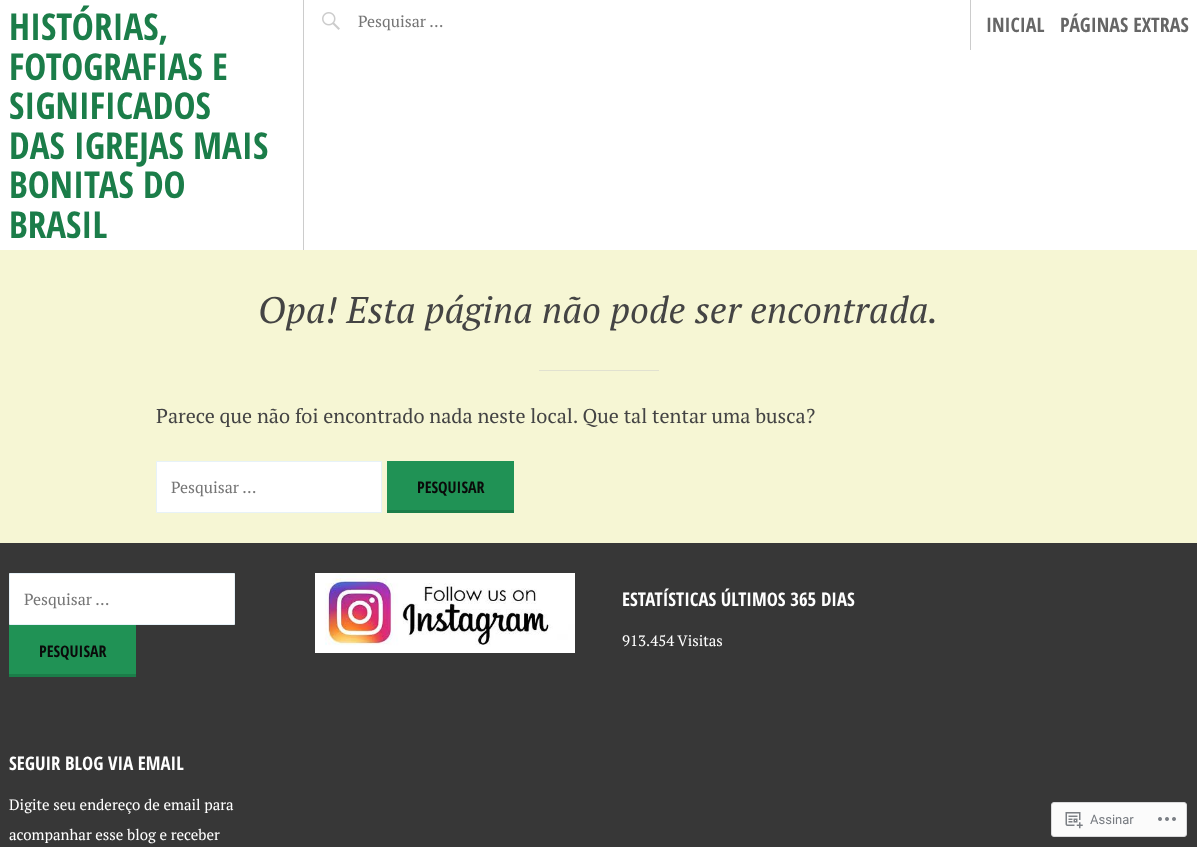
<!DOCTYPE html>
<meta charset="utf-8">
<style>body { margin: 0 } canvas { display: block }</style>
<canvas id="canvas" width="1197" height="847"></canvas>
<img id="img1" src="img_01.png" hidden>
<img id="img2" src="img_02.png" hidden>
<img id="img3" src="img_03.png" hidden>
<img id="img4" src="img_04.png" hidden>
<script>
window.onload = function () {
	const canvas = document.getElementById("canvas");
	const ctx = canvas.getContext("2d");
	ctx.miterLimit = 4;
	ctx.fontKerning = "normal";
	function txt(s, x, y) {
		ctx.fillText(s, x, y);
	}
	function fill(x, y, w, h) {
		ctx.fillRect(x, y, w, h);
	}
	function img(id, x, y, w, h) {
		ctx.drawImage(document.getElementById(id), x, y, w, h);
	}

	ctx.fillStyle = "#F6F6D4";
	fill(0, 0, 1197, 847);
	ctx.fillStyle = "#FFFFFF";
	fill(0, 0, 1197, 250);
	ctx.fillStyle = "#CCCCCC";
	fill(303, 0, 1, 250);
	img("img1", 322, 12, 18, 18);
	fill(970, 0, 1, 50);
	ctx.fillStyle = "#E1E1D0";
	fill(539, 370, 120, 1);
	ctx.fillStyle = "#FFFFFF";
	ctx.beginPath();
	ctx.rect(156.5, 461.5, 225, 51);
	ctx.fill();
	ctx.strokeStyle = "#E7F2F8";
	ctx.stroke();
	ctx.fillStyle = "#209255";
	fill(387, 461, 127, 49);
	ctx.fillStyle = "#1B7D49";
	fill(387, 510, 127, 3);
	ctx.fillStyle = "#373737";
	fill(0, 543, 1197, 304);
	ctx.fillStyle = "#FFFFFF";
	ctx.beginPath();
	ctx.rect(9.5, 573.5, 225, 51);
	ctx.fill();
	ctx.stroke();
	ctx.fillStyle = "#209255";
	fill(9, 625, 127, 49);
	ctx.fillStyle = "#1B7D49";
	fill(9, 674, 127, 3);
	img("img2", 315, 573, 260, 80);
	ctx.fillStyle = "#FBFBFB";
	ctx.beginPath();
	ctx.roundRect(1051.5, 802.5, 135, 34, 2.5);
	ctx.fill();
	ctx.strokeStyle = "#D9D9DB";
	ctx.stroke();
	img("img3", 1065, 812, 18, 17);
	img("img4", 1158, 817, 18, 4);
	ctx.font = "bold 37px Open Sans Condensed";
	ctx.fillStyle = "#1B7D49";
	txt("HISTÓRIAS,", 9, 40);
	txt("FOTOGRAFIAS E", 9, 80);
	txt("SIGNIFICADOS", 9, 119);
	txt("DAS IGREJAS MAIS", 9, 159);
	txt("BONITAS DO", 9, 198);
	txt("BRASIL", 9, 238);
	ctx.font = "16px PT Serif";
	ctx.fillStyle = "#757575";
	txt("Pesquisar …", 358, 27);
	ctx.font = "bold 20px Open Sans Condensed";
	ctx.fillStyle = "#666666";
	txt("INICIAL", 986, 32);
	txt("PÁGINAS EXTRAS", 1060, 32);
	ctx.font = "italic 37px PT Serif";
	ctx.fillStyle = "#444444";
	txt("Opa! Esta página não pode ser encontrada.", 258, 323);
	ctx.font = "20px PT Serif";
	txt("Parece que não foi encontrado nada neste local. Que tal tentar uma busca?", 156, 423);
	ctx.font = "16px PT Serif";
	ctx.fillStyle = "#757575";
	txt("Pesquisar …", 171, 493);
	ctx.font = "bold 16px Open Sans Condensed";
	ctx.fillStyle = "#0A0A0A";
	txt("PESQUISAR", 417, 493);
	ctx.font = "16px PT Serif";
	ctx.fillStyle = "#757575";
	txt("Pesquisar …", 24, 605);
	ctx.font = "bold 16px Open Sans Condensed";
	ctx.fillStyle = "#0A0A0A";
	txt("PESQUISAR", 39, 657);
	ctx.font = "bold 18.75px Open Sans Condensed";
	ctx.fillStyle = "#FFFFFF";
	txt("SEGUIR BLOG VIA EMAIL", 9, 770);
	ctx.font = "15px PT Serif";
	txt("Digite seu endereço de email para", 9, 810);
	txt("acompanhar esse blog e receber", 9, 840);
	ctx.font = "bold 18.75px Open Sans Condensed";
	txt("ESTATÍSTICAS ÚLTIMOS 365 DIAS", 622, 606);
	ctx.font = "15px PT Serif";
	txt("913.454 Visitas", 622, 646);
	ctx.font = "13px Roboto";
	ctx.fillStyle = "#777B81";
	txt("Assinar", 1090, 824);
};
</script>
